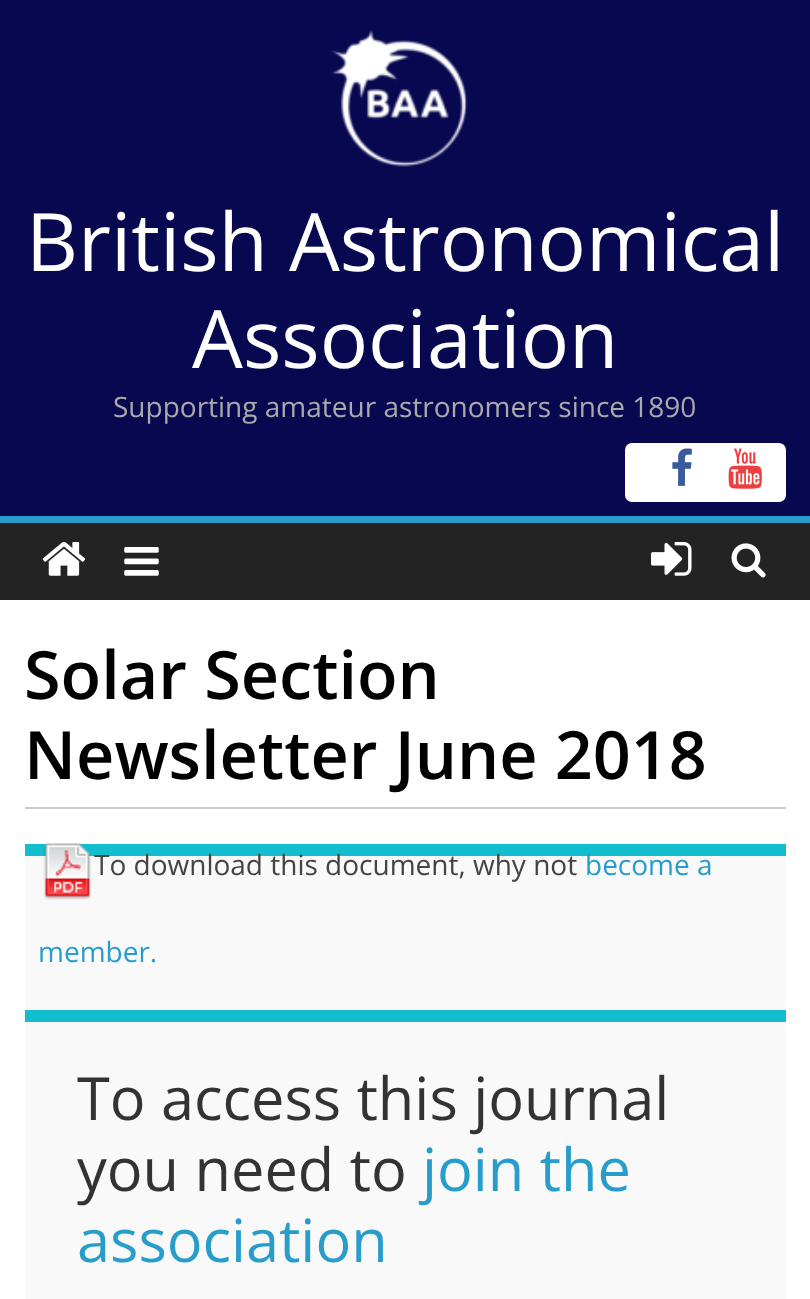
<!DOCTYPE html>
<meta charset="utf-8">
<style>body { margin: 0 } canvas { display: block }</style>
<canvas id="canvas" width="810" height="1299"></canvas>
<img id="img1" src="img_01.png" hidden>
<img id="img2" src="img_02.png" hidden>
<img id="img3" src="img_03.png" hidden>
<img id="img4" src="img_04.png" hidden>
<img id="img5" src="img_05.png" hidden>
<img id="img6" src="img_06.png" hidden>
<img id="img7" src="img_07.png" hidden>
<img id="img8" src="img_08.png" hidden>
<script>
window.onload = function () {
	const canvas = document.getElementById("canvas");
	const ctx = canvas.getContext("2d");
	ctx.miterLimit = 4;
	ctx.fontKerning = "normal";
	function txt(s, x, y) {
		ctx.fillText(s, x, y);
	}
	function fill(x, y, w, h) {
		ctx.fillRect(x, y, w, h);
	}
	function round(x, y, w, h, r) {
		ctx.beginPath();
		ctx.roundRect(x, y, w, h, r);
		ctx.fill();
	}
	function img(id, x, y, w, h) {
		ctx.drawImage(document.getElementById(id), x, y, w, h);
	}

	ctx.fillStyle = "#080850";
	fill(0, 0, 810, 1299);
	img("img1", 330, 30, 138, 137);
	ctx.fillStyle = "#FFFFFF";
	round(625, 443, 161, 59, 7);
	img("img2", 672, 448, 20, 38);
	img("img3", 728, 448, 34, 41);
	ctx.fillStyle = "#232323";
	fill(0, 523, 810, 77);
	ctx.fillStyle = "#289DCC";
	fill(0, 516, 810, 7);
	img("img4", 42, 541, 44, 35);
	img("img5", 124, 547, 35, 29);
	img("img6", 651, 542, 41, 34);
	img("img7", 731, 543, 35, 35);
	ctx.fillStyle = "#FFFFFF";
	fill(0, 600, 810, 699);
	ctx.fillStyle = "#CCCCCC";
	fill(25, 807, 761, 2);
	ctx.fillStyle = "#F9F9F9";
	fill(25, 856, 761, 154);
	ctx.fillStyle = "#12BECE";
	fill(25, 844, 761, 12);
	img("img8", 43, 843, 48, 57);
	ctx.fillStyle = "#F9F9F9";
	fill(25, 1022, 761, 277);
	ctx.fillStyle = "#12BECE";
	fill(25, 1010, 761, 12);
	ctx.font = "80.5px Open Sans";
	ctx.fillStyle = "#FFFFFF";
	txt("British Astronomical", 26, 271);
	txt("Association", 192, 368);
	ctx.font = "28px Open Sans";
	ctx.fillStyle = "#AAAAAA";
	txt("Supporting amateur astronomers since 1890", 113, 417);
	ctx.font = "600 66.5px Open Sans";
	ctx.fillStyle = "#000000";
	txt("Solar Section", 24, 699);
	txt("Newsletter June 2018", 24, 779);
	ctx.font = "28px Open Sans";
	ctx.fillStyle = "#444444";
	txt("To download this document, why not", 94, 875);
	ctx.fillStyle = "#289DCC";
	txt("become a", 585, 875);
	txt("member.", 38, 962);
	ctx.font = "59.5px Open Sans";
	ctx.fillStyle = "#333333";
	txt("To access this journal", 77, 1120);
	txt("you need to", 77, 1191);
	ctx.fillStyle = "#289DCC";
	txt("join the", 422, 1191);
	txt("association", 77, 1262);
};
</script>
